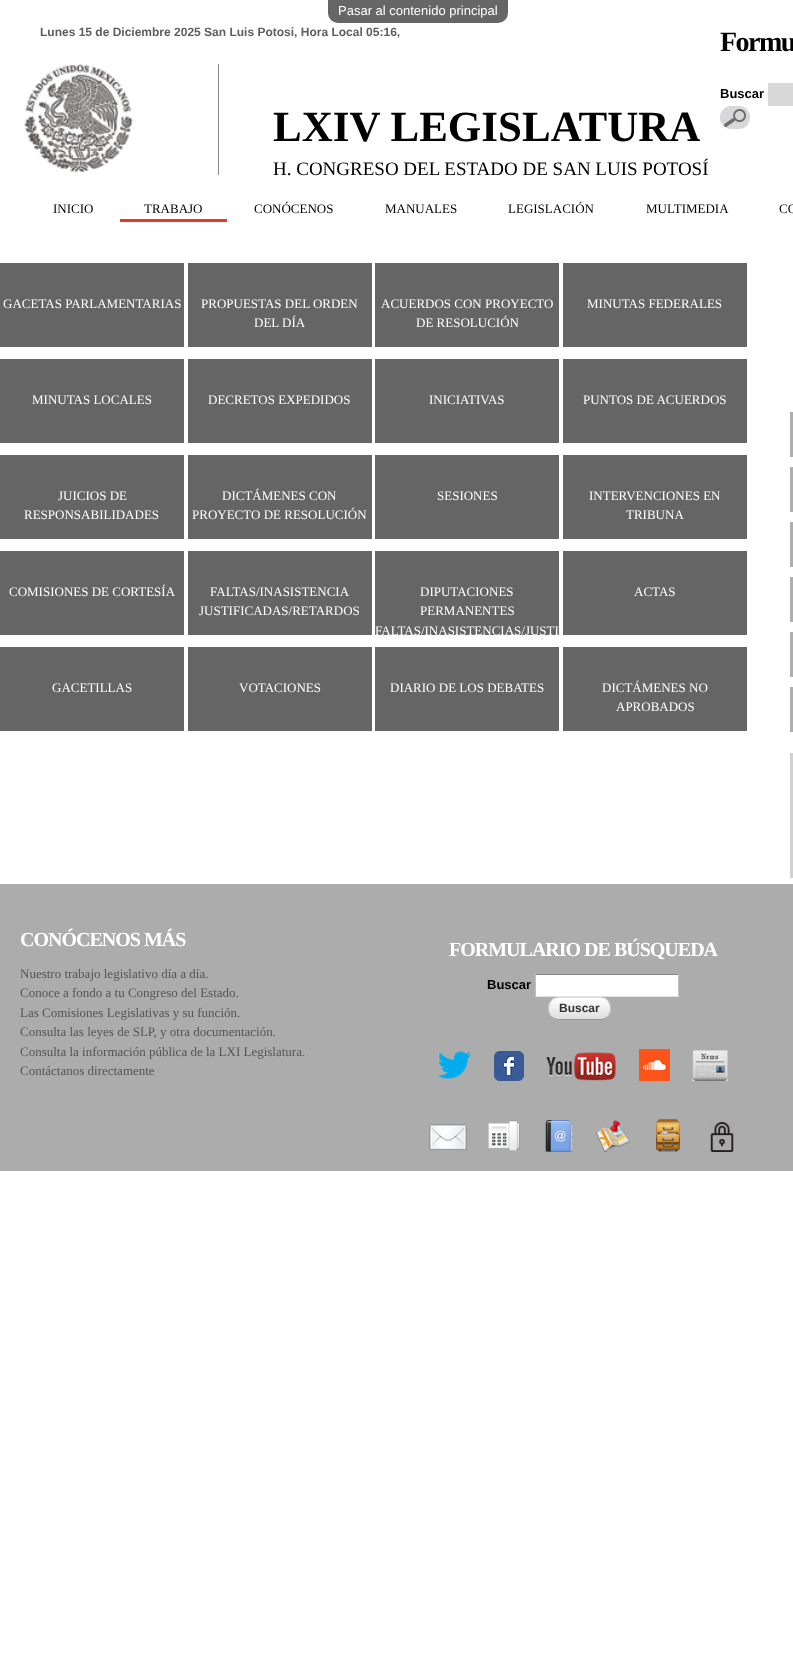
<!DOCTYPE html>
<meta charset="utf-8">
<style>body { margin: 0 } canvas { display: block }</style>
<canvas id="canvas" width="793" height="1659"></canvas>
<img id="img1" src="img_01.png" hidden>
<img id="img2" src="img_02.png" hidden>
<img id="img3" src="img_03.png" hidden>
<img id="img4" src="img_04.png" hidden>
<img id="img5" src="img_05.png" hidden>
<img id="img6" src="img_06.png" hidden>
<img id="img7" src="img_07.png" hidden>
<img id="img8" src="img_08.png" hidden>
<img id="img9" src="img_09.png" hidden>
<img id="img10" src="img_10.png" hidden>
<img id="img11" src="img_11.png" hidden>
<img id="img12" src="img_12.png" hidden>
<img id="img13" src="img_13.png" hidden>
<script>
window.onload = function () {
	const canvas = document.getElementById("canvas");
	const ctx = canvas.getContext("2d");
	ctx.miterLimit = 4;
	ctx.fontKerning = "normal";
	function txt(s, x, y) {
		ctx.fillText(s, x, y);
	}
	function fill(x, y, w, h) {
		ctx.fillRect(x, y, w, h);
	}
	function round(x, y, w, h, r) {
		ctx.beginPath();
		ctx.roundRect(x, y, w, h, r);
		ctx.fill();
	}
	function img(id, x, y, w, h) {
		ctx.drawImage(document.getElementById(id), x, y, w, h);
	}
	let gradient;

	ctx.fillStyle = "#FFFFFF";
	fill(0, 0, 793, 1659);
	ctx.fillStyle = "#666666";
	ctx.beginPath();
	ctx.roundRect(328, 0, 180, 23, [0, 0, 10, 10]);
	ctx.fill();
	ctx.fillStyle = "#D8D8D8";
	fill(768, 83, 25, 23);
	round(720, 106, 30, 23, 11);
	img("img1", 724, 109, 22, 18);
	ctx.fillStyle = "#898989";
	fill(218, 64, 1, 111);
	img("img2", 24, 64, 109, 109);
	ctx.fillStyle = "#EE3723";
	fill(120, 219, 107, 3);
	ctx.fillStyle = "#656565";
	fill(0, 263, 184, 84);
	fill(188, 263, 184, 84);
	fill(375, 263, 184, 84);
	fill(563, 263, 184, 84);
	fill(0, 359, 184, 84);
	fill(188, 359, 184, 84);
	fill(375, 359, 184, 84);
	fill(563, 359, 184, 84);
	fill(0, 455, 184, 84);
	fill(188, 455, 184, 84);
	fill(375, 455, 184, 84);
	fill(563, 455, 184, 84);
	fill(0, 551, 184, 84);
	fill(188, 551, 184, 84);
	fill(375, 551, 184, 84);
	fill(563, 551, 184, 84);
	fill(0, 647, 184, 84);
	fill(188, 647, 184, 84);
	fill(375, 647, 184, 84);
	fill(563, 647, 184, 84);
	ctx.fillStyle = "#AEAEAE";
	fill(790, 412, 3, 45);
	fill(790, 467, 3, 45);
	fill(790, 522, 3, 45);
	fill(790, 577, 3, 45);
	fill(790, 632, 3, 45);
	fill(790, 687, 3, 45);
	ctx.fillStyle = "#D4D0D1";
	fill(790, 753, 3, 125);
	ctx.fillStyle = "#ACACAC";
	fill(0, 884, 793, 287);
	ctx.fillStyle = "#FFFFFF";
	fill(536, 975, 142, 21);
	ctx.fillStyle = "#848484";
	fill(535, 974, 144, 1);
	ctx.fillStyle = "#C1C1C1";
	fill(678, 974, 1, 23);
	ctx.fillStyle = "#E1E1E1";
	fill(535, 996, 144, 1);
	ctx.fillStyle = "#C1C1C1";
	fill(535, 974, 1, 23);
	ctx.save();
	ctx.beginPath();
	ctx.roundRect(548, 997, 63, 23, 11);
	ctx.clip();
	gradient = ctx.createLinearGradient(549, 998, 549, 1019);
	gradient.addColorStop(0, "#FFFFFF");
	gradient.addColorStop(1, "#DDDDDD");
	ctx.fillStyle = gradient;
	fill(548, 998, 63, 21);
	ctx.restore();
	ctx.beginPath();
	ctx.moveTo(551.5, 1000.5);
	ctx.bezierCurveTo(553.5, 998.5, 556, 997.5, 559, 997.5);
	ctx.lineTo(600, 997.5);
	ctx.bezierCurveTo(603, 997.5, 605.5, 998.5, 607.5, 1000.5);
	ctx.strokeStyle = "#DDDDDD";
	ctx.stroke();
	ctx.beginPath();
	ctx.moveTo(607.5, 1000.5);
	ctx.bezierCurveTo(611.5, 1004.5, 611.5, 1012.5, 607.5, 1016.5);
	ctx.strokeStyle = "#BBBBBB";
	ctx.stroke();
	ctx.beginPath();
	ctx.moveTo(607.5, 1016.5);
	ctx.bezierCurveTo(605.5, 1018.5, 603, 1019.5, 600, 1019.5);
	ctx.lineTo(559, 1019.5);
	ctx.bezierCurveTo(556, 1019.5, 553.5, 1018.5, 551.5, 1016.5);
	ctx.strokeStyle = "#999999";
	ctx.stroke();
	ctx.beginPath();
	ctx.moveTo(551.5, 1016.5);
	ctx.bezierCurveTo(547.5, 1012.5, 547.5, 1004.5, 551.5, 1000.5);
	ctx.strokeStyle = "#BBBBBB";
	ctx.stroke();
	img("img3", 438, 1051, 34, 28);
	img("img4", 494, 1051, 30, 30);
	img("img5", 546, 1052, 70, 29);
	img("img6", 639, 1049, 31, 32);
	img("img7", 692, 1050, 36, 31);
	img("img8", 429, 1124, 38, 27);
	img("img9", 488, 1120, 32, 31);
	img("img10", 544, 1120, 29, 32);
	img("img11", 596, 1120, 34, 32);
	img("img12", 656, 1119, 24, 33);
	img("img13", 710, 1122, 24, 30);
	ctx.font = "13px Liberation Sans";
	ctx.fillStyle = "#FFFFFF";
	txt("Pasar al contenido principal", 338, 15);
	ctx.font = "bold 12px Liberation Sans";
	ctx.fillStyle = "#5E5E5E";
	txt("Lunes 15 de Diciembre 2025 San Luis Potosi, Hora Local 05:16,", 40, 36);
	ctx.letterSpacing = "-1.5px";
	ctx.font = "bold 28px Liberation Serif";
	ctx.fillStyle = "#000000";
	txt("Formu", 720, 51);
	ctx.letterSpacing = "0px";
	ctx.font = "bold 13px Liberation Sans";
	txt("Buscar", 720, 98);
	ctx.font = "bold 43px Liberation Serif";
	txt("LXIV LEGISLATURA", 273, 141);
	ctx.font = "19px Liberation Serif";
	txt("H. CONGRESO DEL ESTADO DE SAN LUIS POTOSÍ", 273, 175);
	ctx.font = "13px Liberation Serif";
	txt("INICIO", 53, 213);
	txt("TRABAJO", 144, 213);
	txt("CONÓCENOS", 254, 213);
	txt("MANUALES", 385, 213);
	txt("LEGISLACIÓN", 508, 213);
	txt("MULTIMEDIA", 646, 213);
	txt("CO", 779, 213);
	ctx.fillStyle = "#FFFFFF";
	txt("GACETAS PARLAMENTARIAS", 3, 308);
	txt("PROPUESTAS DEL ORDEN", 201, 308);
	txt("DEL DÍA", 254, 327);
	txt("ACUERDOS CON PROYECTO", 381, 308);
	txt("DE RESOLUCIÓN", 416, 327);
	txt("MINUTAS FEDERALES", 587, 308);
	txt("MINUTAS LOCALES", 32, 404);
	txt("DECRETOS EXPEDIDOS", 208, 404);
	txt("INICIATIVAS", 429, 404);
	txt("PUNTOS DE ACUERDOS", 583, 404);
	txt("JUICIOS DE", 58, 500);
	txt("RESPONSABILIDADES", 24, 519);
	txt("DICTÁMENES CON", 222, 500);
	txt("PROYECTO DE RESOLUCIÓN", 192, 519);
	txt("SESIONES", 437, 500);
	txt("INTERVENCIONES EN", 589, 500);
	txt("TRIBUNA", 626, 519);
	txt("COMISIONES DE CORTESÍA", 9, 596);
	txt("FALTAS/INASISTENCIA", 210, 596);
	txt("JUSTIFICADAS/RETARDOS", 199, 615);
	txt("DIPUTACIONES", 420, 596);
	txt("PERMANENTES", 420, 615);
	txt("FALTAS/INASISTENCIAS/JUSTI", 375, 635);
	txt("ACTAS", 634, 596);
	txt("GACETILLAS", 52, 692);
	txt("VOTACIONES", 239, 692);
	txt("DIARIO DE LOS DEBATES", 390, 692);
	txt("DICTÁMENES NO", 602, 692);
	txt("APROBADOS", 616, 711);
	ctx.letterSpacing = "-1px";
	ctx.font = "bold 20px Liberation Serif";
	txt("CONÓCENOS MÁS", 20, 946);
	ctx.letterSpacing = "0px";
	ctx.font = "13px Liberation Serif";
	ctx.fillStyle = "#555555";
	txt("Nuestro trabajo legislativo día a día.", 20, 978);
	txt("Conoce a fondo a tu Congreso del Estado.", 20, 997);
	txt("Las Comisiones Legislativas y su función.", 20, 1017);
	txt("Consulta las leyes de SLP, y otra documentación.", 20, 1036);
	txt("Consulta la información pública de la LXI Legislatura.", 20, 1056);
	txt("Contáctanos directamente", 20, 1075);
	ctx.letterSpacing = "-1px";
	ctx.font = "bold 20px Liberation Serif";
	ctx.fillStyle = "#FFFFFF";
	txt("FORMULARIO DE BÚSQUEDA", 449, 956);
	ctx.letterSpacing = "0px";
	ctx.font = "bold 13px Liberation Sans";
	ctx.fillStyle = "#000000";
	txt("Buscar", 487, 989);
	ctx.font = "bold 12px Liberation Sans";
	ctx.fillStyle = "#333333";
	txt("Buscar", 559, 1012);
};
</script>
